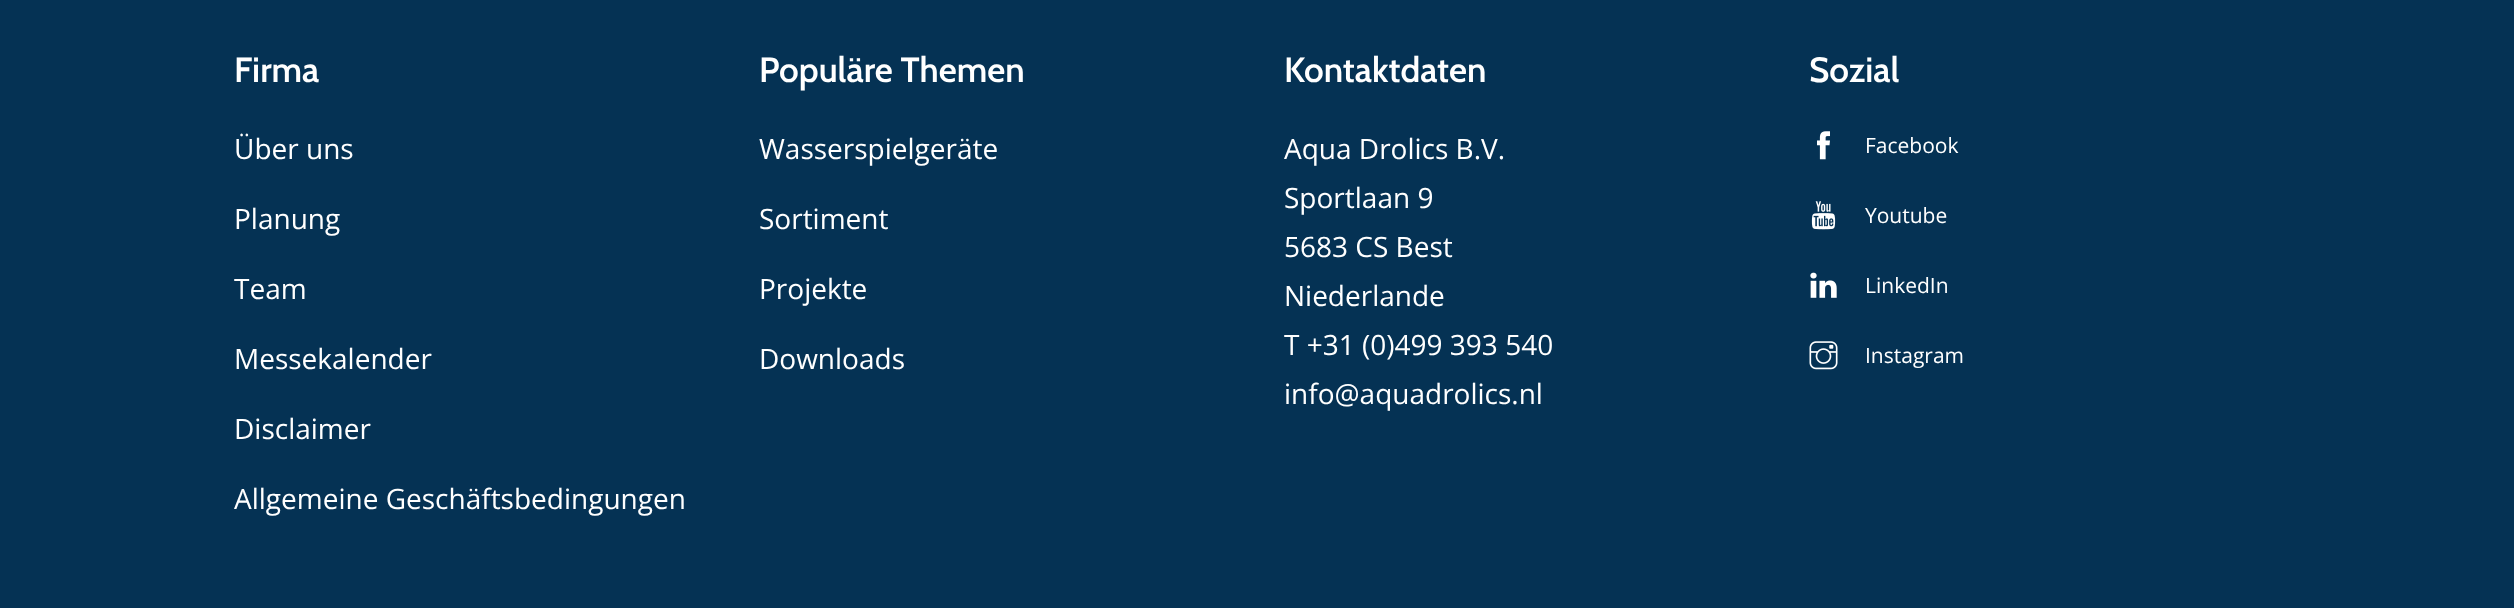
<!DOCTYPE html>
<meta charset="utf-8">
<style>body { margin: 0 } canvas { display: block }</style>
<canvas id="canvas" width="2514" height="608"></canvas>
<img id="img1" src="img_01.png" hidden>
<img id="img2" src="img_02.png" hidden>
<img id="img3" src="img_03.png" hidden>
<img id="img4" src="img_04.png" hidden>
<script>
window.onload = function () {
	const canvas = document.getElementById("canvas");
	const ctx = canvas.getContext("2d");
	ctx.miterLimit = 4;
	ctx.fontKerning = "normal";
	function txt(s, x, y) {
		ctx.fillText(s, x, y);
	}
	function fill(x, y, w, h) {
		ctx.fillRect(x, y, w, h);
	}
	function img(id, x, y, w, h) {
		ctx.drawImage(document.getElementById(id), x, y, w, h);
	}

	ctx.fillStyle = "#053254";
	fill(0, 0, 2514, 608);
	img("img1", 1817, 131, 13, 29);
	img("img2", 1811, 201, 25, 29);
	img("img3", 1810, 272, 27, 26);
	img("img4", 1809, 341, 29, 29);
	ctx.font = "600 35px Cabin";
	ctx.fillStyle = "#FFFFFF";
	txt("Firma", 234, 82);
	ctx.font = "28px Open Sans";
	txt("Über uns", 234, 159);
	txt("Planung", 234, 229);
	txt("Team", 234, 299);
	txt("Messekalender", 234, 369);
	txt("Disclaimer", 234, 439);
	txt("Allgemeine Geschäftsbedingungen", 234, 509);
	ctx.font = "600 35px Cabin";
	txt("Populäre Themen", 759, 82);
	ctx.font = "28px Open Sans";
	txt("Wasserspielgeräte", 759, 159);
	txt("Sortiment", 759, 229);
	txt("Projekte", 759, 299);
	txt("Downloads", 759, 369);
	ctx.font = "600 35px Cabin";
	txt("Kontaktdaten", 1284, 82);
	ctx.font = "28px Open Sans";
	txt("Aqua Drolics B.V.", 1284, 159);
	txt("Sportlaan 9", 1284, 208);
	txt("5683 CS Best", 1284, 257);
	txt("Niederlande", 1284, 306);
	txt("T +31 (0)499 393 540", 1284, 355);
	txt("info@aquadrolics.nl", 1284, 404);
	ctx.font = "600 35px Cabin";
	txt("Sozial", 1809, 82);
	ctx.font = "21px Open Sans";
	txt("Facebook", 1865, 153);
	txt("Youtube", 1865, 223);
	txt("LinkedIn", 1865, 293);
	txt("Instagram", 1865, 363);
};
</script>
